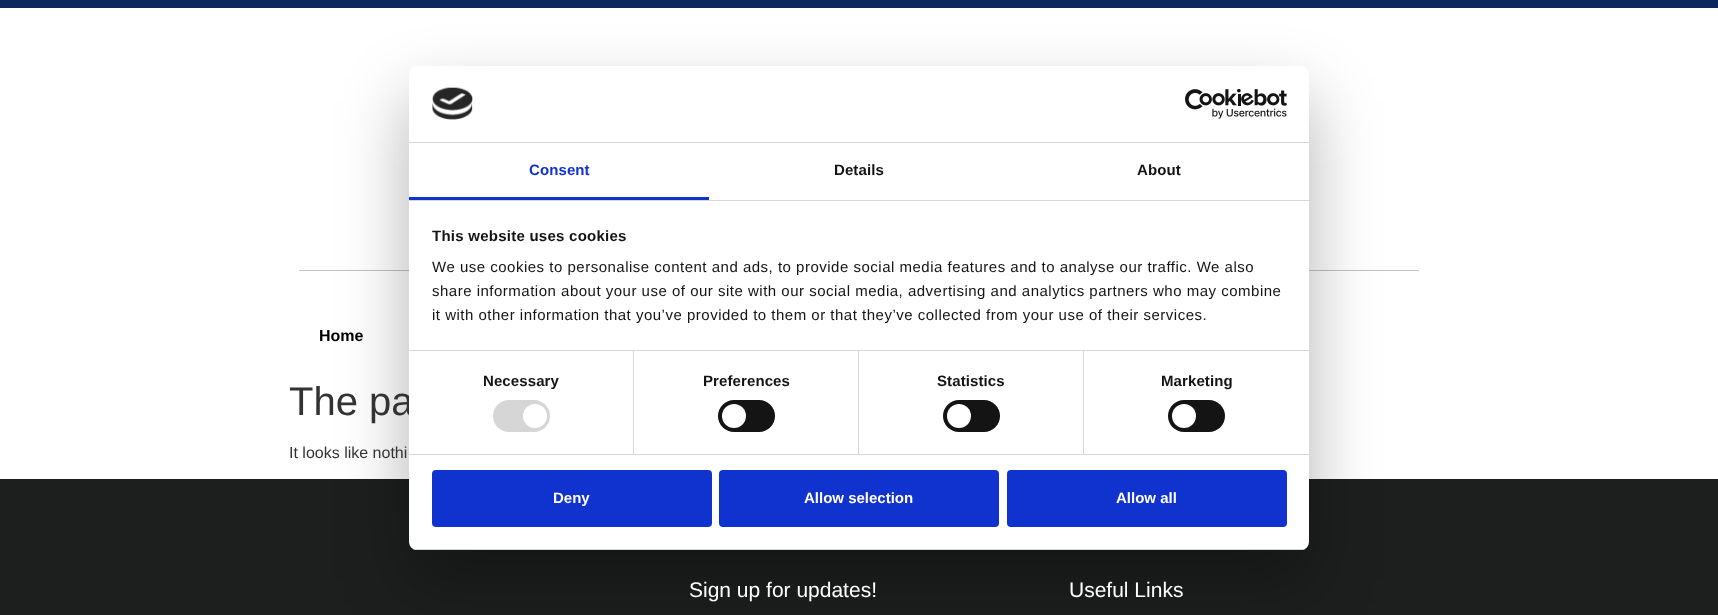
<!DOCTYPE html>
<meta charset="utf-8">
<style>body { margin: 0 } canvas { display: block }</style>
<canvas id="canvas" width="1718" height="615"></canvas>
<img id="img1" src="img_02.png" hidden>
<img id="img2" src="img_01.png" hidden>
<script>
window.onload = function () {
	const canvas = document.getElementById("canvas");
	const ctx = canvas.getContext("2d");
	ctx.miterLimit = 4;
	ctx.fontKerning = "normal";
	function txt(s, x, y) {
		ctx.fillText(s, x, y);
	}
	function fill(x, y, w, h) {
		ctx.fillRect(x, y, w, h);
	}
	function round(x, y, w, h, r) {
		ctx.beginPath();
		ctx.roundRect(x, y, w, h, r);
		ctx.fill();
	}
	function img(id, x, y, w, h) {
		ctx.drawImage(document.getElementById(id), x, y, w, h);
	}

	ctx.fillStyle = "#FFFFFF";
	fill(0, 0, 1718, 615);
	ctx.fillStyle = "#0E265E";
	fill(0, 0, 1718, 8);
	ctx.fillStyle = "#C3C3C3";
	fill(299, 270, 1120, 1);
	ctx.fillStyle = "#1D1F1F";
	fill(0, 479, 1718, 136);
	ctx.fillStyle = "rgba(0, 0, 0, 0.3)";
	ctx.filter = "blur(34px)";
	ctx.beginPath();
	ctx.roundRect(409, 98, 900, 484, 8);
	ctx.fill();
	ctx.filter = "none";
	ctx.font = "bold 16px Liberation Sans";
	ctx.fillStyle = "#000000";
	txt("Home", 319, 341);
	ctx.font = "40px Liberation Sans";
	ctx.fillStyle = "#333333";
	txt("The pa", 289, 415);
	ctx.fillStyle = "#FFFFFF";
	round(409, 66, 900, 484, 8);
	ctx.fillStyle = "#1032CF";
	ctx.beginPath();
	ctx.roundRect(1008, 471, 278, 55, 3);
	ctx.fill();
	ctx.strokeStyle = "#1032CF";
	ctx.lineWidth = 2;
	ctx.stroke();
	ctx.font = "bold 15px Liberation Sans";
	ctx.fillStyle = "#FFFFFF";
	txt("Allow all", 1116, 503);
	ctx.fillStyle = "#1032CF";
	ctx.beginPath();
	ctx.roundRect(720, 471, 278, 55, 3);
	ctx.fill();
	ctx.stroke();
	ctx.fillStyle = "#FFFFFF";
	txt("Allow selection", 804, 503);
	ctx.fillStyle = "#1032CF";
	ctx.beginPath();
	ctx.roundRect(433, 471, 278, 55, 3);
	ctx.fill();
	ctx.stroke();
	ctx.fillStyle = "#FFFFFF";
	txt("Deny", 553, 503);
	ctx.save();
	ctx.beginPath();
	ctx.roundRect(409, 66, 900, 484, 8);
	ctx.clip();
	ctx.fillStyle = "#D6D6D6";
	fill(409, 549, 900, 1);
	ctx.restore();
	ctx.fillStyle = "#141414";
	round(1168, 400, 57, 32, 16);
	ctx.fillStyle = "#FFFFFF";
	ctx.beginPath();
	ctx.arc(1184, 416, 12, 0, Math.PI * 2);
	ctx.fill();
	ctx.fillStyle = "#141414";
	round(943, 400, 57, 32, 16);
	ctx.fillStyle = "#FFFFFF";
	ctx.beginPath();
	ctx.arc(959, 416, 12, 0, Math.PI * 2);
	ctx.fill();
	ctx.fillStyle = "#141414";
	round(718, 400, 57, 32, 16);
	ctx.fillStyle = "#FFFFFF";
	ctx.beginPath();
	ctx.arc(734, 416, 12, 0, Math.PI * 2);
	ctx.fill();
	ctx.fillStyle = "#D6D6D6";
	round(493, 400, 57, 32, 16);
	ctx.fillStyle = "#FFFFFF";
	ctx.beginPath();
	ctx.arc(535, 416, 12, 0, Math.PI * 2);
	ctx.fill();
	ctx.letterSpacing = "0.5px";
	ctx.font = "15px Liberation Sans";
	ctx.fillStyle = "#141414";
	txt("it with other information that you’ve provided to them or that they’ve collected from your use of their services.", 432, 320);
	txt("share information about your use of our site with our social media, advertising and analytics partners who may combine", 432, 296);
	txt("We use cookies to personalise content and ads, to provide social media features and to analyse our traffic. We also", 432, 272);
	ctx.letterSpacing = "0.25px";
	ctx.font = "bold 15px Liberation Sans";
	txt("This website uses cookies", 432, 241);
	ctx.fillStyle = "#D6D6D6";
	fill(409, 350, 900, 1);
	ctx.letterSpacing = "0.1px";
	ctx.fillStyle = "#141414";
	txt("About", 1137, 175);
	txt("Details", 834, 175);
	ctx.fillStyle = "#1032CF";
	txt("Consent", 529, 175);
	fill(409, 197, 300, 3);
	ctx.fillStyle = "#D6D6D6";
	fill(409, 200, 900, 1);
	ctx.fillStyle = "#141414";
	txt("Marketing", 1161, 386);
	txt("Statistics", 937, 386);
	ctx.fillStyle = "#D6D6D6";
	fill(1083, 351, 1, 103);
	ctx.fillStyle = "#141414";
	txt("Preferences", 703, 386);
	ctx.fillStyle = "#D6D6D6";
	fill(858, 351, 1, 103);
	ctx.fillStyle = "#141414";
	txt("Necessary", 483, 386);
	ctx.fillStyle = "#D6D6D6";
	fill(633, 351, 1, 103);
	fill(409, 454, 900, 1);
	img("img1", 1185, 89, 102, 30);
	img("img2", 432, 87, 41, 33);
	fill(409, 142, 900, 1);
	ctx.letterSpacing = "0px";
	ctx.font = "16px Liberation Sans";
	ctx.fillStyle = "#333333";
	txt("It looks like nothi", 289, 458);
	ctx.font = "21px Liberation Sans";
	ctx.fillStyle = "#FFFFFF";
	txt("Sign up for updates!", 689, 597);
	txt("Useful Links", 1069, 597);
};
</script>
